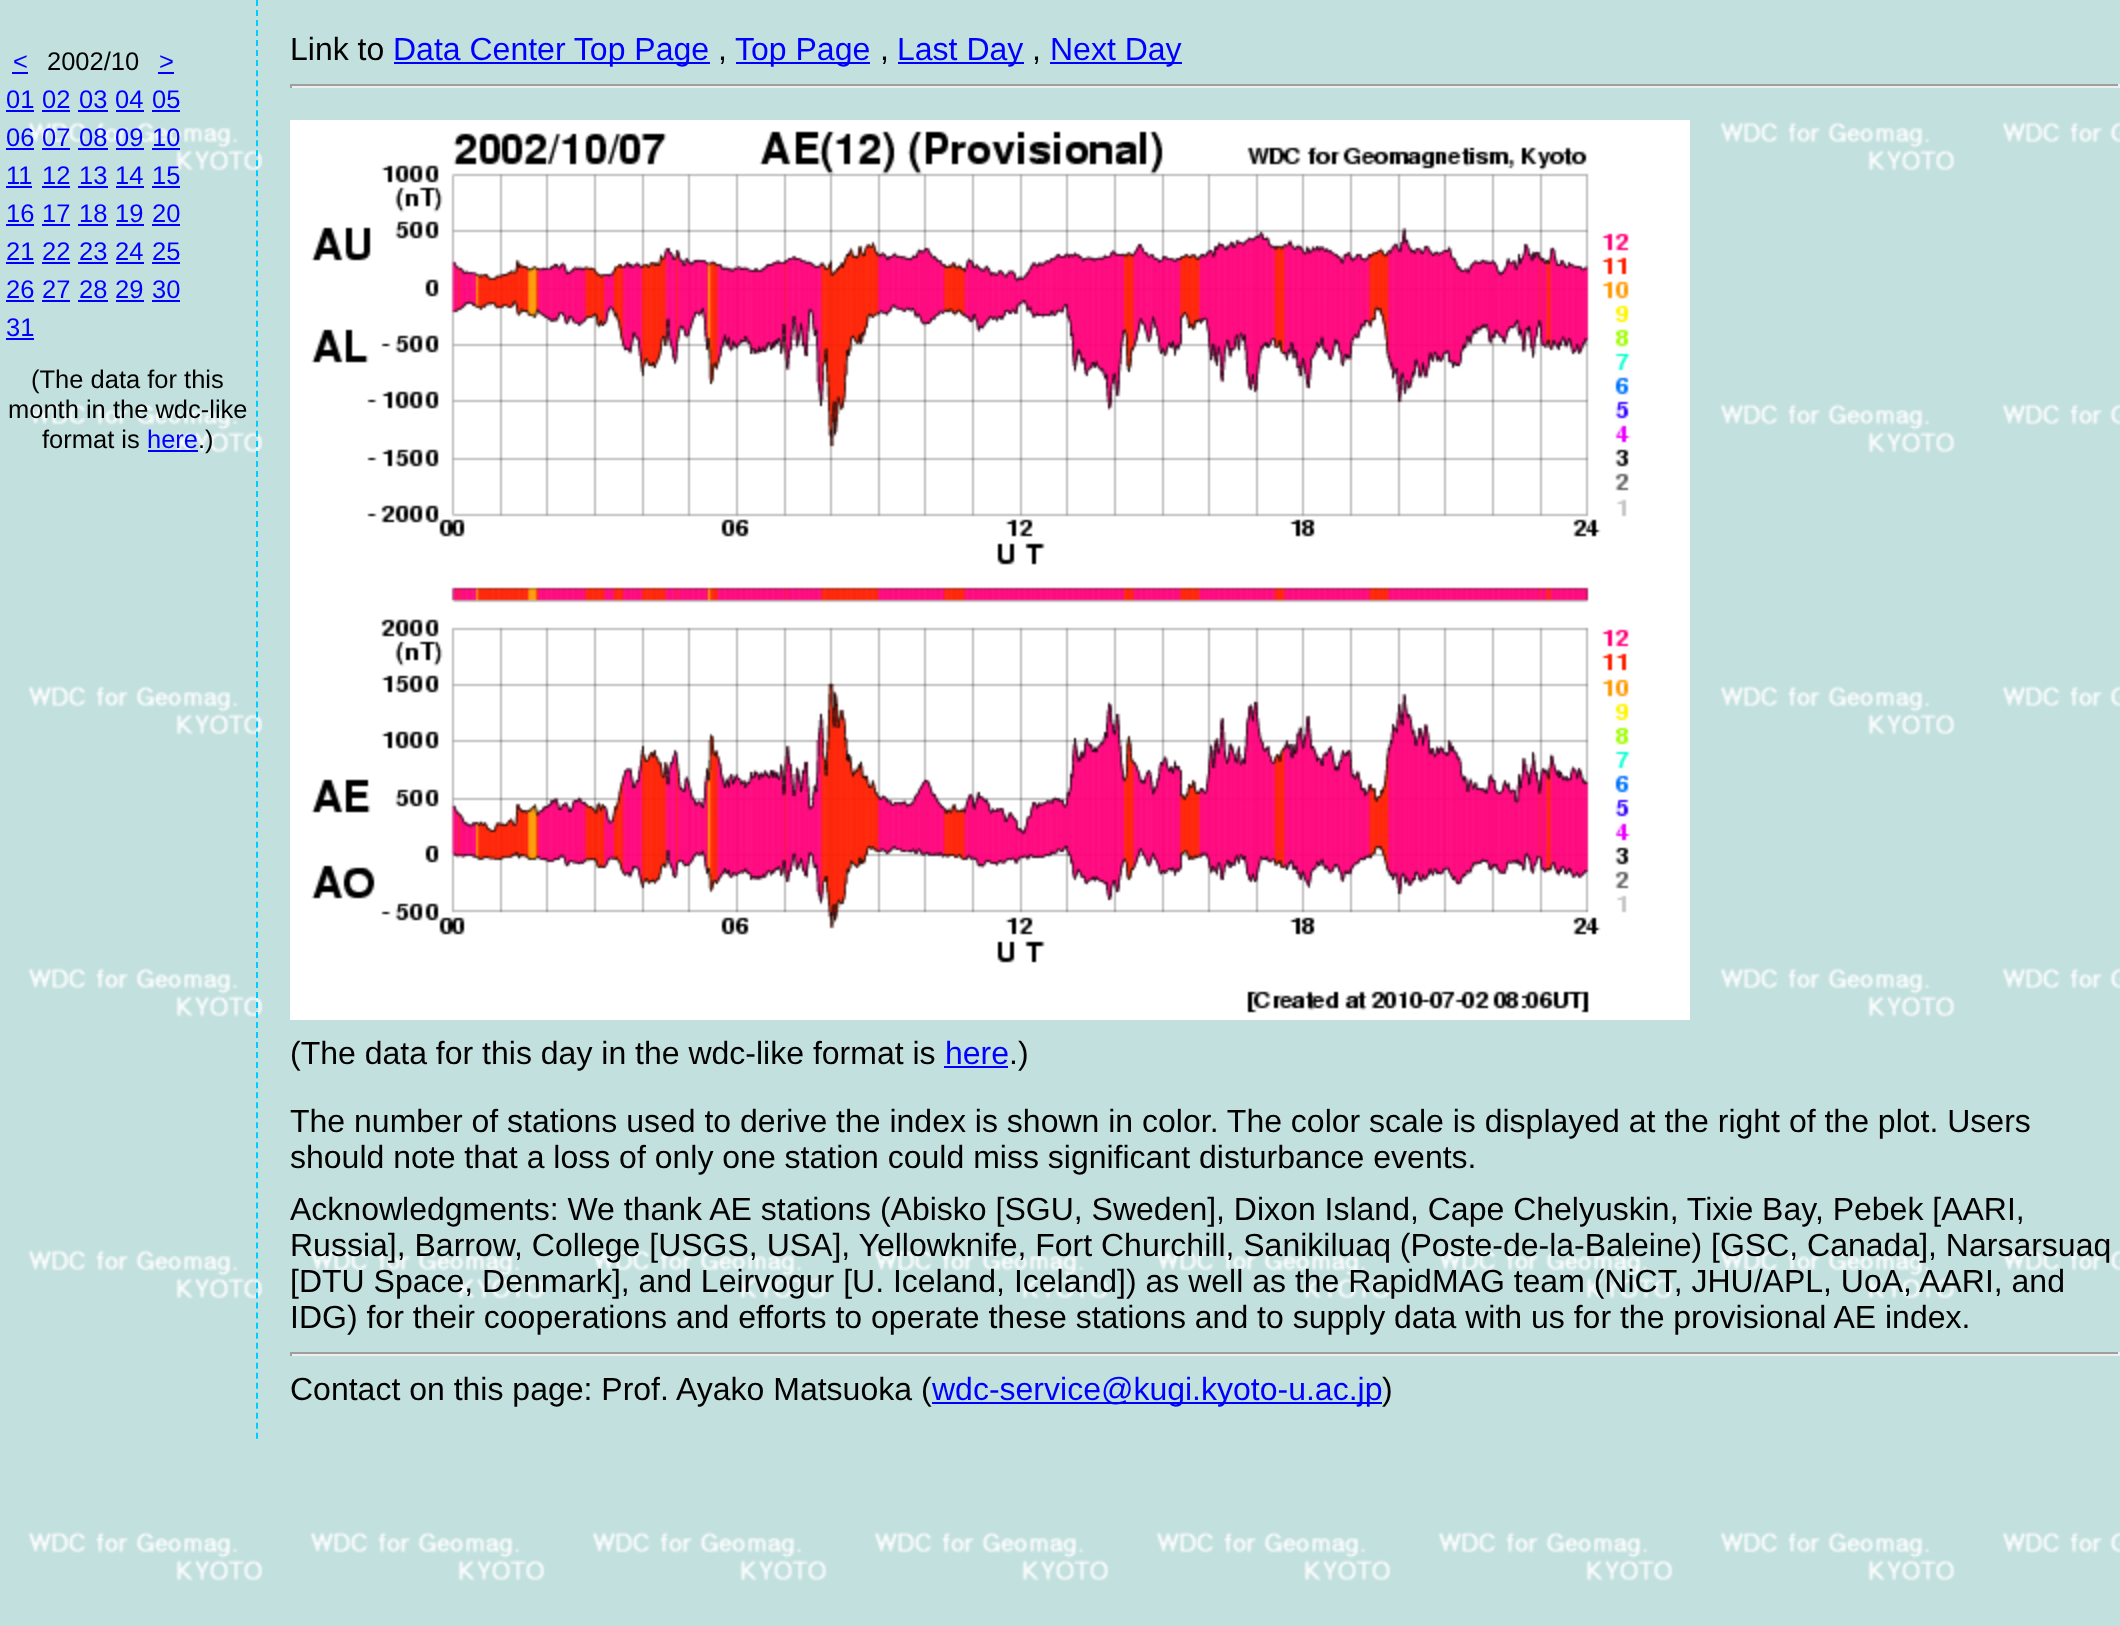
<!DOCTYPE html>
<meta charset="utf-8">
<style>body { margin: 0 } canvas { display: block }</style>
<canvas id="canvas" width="2120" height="1626"></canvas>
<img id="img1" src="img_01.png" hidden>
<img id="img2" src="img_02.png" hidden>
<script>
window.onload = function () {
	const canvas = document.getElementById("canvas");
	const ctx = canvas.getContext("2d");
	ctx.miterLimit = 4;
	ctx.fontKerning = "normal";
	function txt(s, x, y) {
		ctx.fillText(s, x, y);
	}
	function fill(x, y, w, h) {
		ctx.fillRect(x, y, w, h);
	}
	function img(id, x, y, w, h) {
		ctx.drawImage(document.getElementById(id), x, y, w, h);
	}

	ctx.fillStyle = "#FFFFFF";
	fill(0, 0, 2120, 1626);
	img("img1", 0, 0, 2120, 1626);
	ctx.fillStyle = "#0000FF";
	fill(12, 72, 16, 2);
	fill(158, 72, 16, 2);
	fill(6, 110, 28, 2);
	fill(42, 110, 28, 2);
	fill(78, 110, 30, 2);
	fill(116, 110, 28, 2);
	fill(152, 110, 28, 2);
	fill(6, 148, 28, 2);
	fill(42, 148, 28, 2);
	fill(78, 148, 30, 2);
	fill(116, 148, 28, 2);
	fill(152, 148, 28, 2);
	fill(6, 186, 26, 2);
	fill(42, 186, 28, 2);
	fill(78, 186, 30, 2);
	fill(116, 186, 28, 2);
	fill(152, 186, 28, 2);
	fill(6, 224, 28, 2);
	fill(42, 224, 28, 2);
	fill(78, 224, 30, 2);
	fill(116, 224, 28, 2);
	fill(152, 224, 28, 2);
	fill(6, 262, 28, 2);
	fill(42, 262, 28, 2);
	fill(78, 262, 30, 2);
	fill(116, 262, 28, 2);
	fill(152, 262, 28, 2);
	fill(6, 300, 28, 2);
	fill(42, 300, 28, 2);
	fill(78, 300, 30, 2);
	fill(116, 300, 28, 2);
	fill(152, 300, 28, 2);
	fill(6, 338, 28, 2);
	fill(148, 450, 50, 2);
	ctx.beginPath();
	ctx.moveTo(257, 0);
	ctx.lineTo(257, 1440);
	ctx.strokeStyle = "#00CCFF";
	ctx.lineWidth = 2;
	ctx.setLineDash([6, 4.02]);
	ctx.stroke();
	fill(394, 62, 316, 2);
	fill(736, 62, 134, 2);
	fill(898, 62, 126, 2);
	fill(1050, 62, 132, 2);
	ctx.fillStyle = "#9F9F9F";
	fill(290, 84, 1830, 2);
	ctx.fillStyle = "#EEEEEE";
	fill(2118, 84, 2, 4);
	fill(290, 86, 1830, 2);
	ctx.fillStyle = "#9F9F9F";
	fill(290, 84, 2, 4);
	img("img2", 290, 120, 1400, 900);
	ctx.fillStyle = "#0000FF";
	fill(944, 1066, 64, 2);
	ctx.fillStyle = "#9F9F9F";
	fill(290, 1352, 1830, 2);
	ctx.fillStyle = "#EEEEEE";
	fill(2118, 1352, 2, 4);
	fill(290, 1354, 1830, 2);
	ctx.fillStyle = "#9F9F9F";
	fill(290, 1352, 2, 4);
	ctx.fillStyle = "#0000FF";
	fill(932, 1402, 450, 2);
	ctx.font = "25.5px Liberation Sans";
	txt("<", 13, 70);
	ctx.fillStyle = "#000000";
	txt("2002/10", 47, 70);
	ctx.fillStyle = "#0000FF";
	txt(">", 159, 70);
	txt("01", 6, 108);
	txt("02", 42, 108);
	txt("03", 79, 108);
	txt("04", 115, 108);
	txt("05", 152, 108);
	txt("06", 6, 146);
	txt("07", 42, 146);
	txt("08", 79, 146);
	txt("09", 115, 146);
	txt("10", 152, 146);
	txt("11", 6, 184);
	txt("12", 42, 184);
	txt("13", 79, 184);
	txt("14", 115, 184);
	txt("15", 152, 184);
	txt("16", 6, 222);
	txt("17", 42, 222);
	txt("18", 79, 222);
	txt("19", 115, 222);
	txt("20", 152, 222);
	txt("21", 6, 260);
	txt("22", 42, 260);
	txt("23", 79, 260);
	txt("24", 115, 260);
	txt("25", 152, 260);
	txt("26", 6, 298);
	txt("27", 42, 298);
	txt("28", 79, 298);
	txt("29", 115, 298);
	txt("30", 152, 298);
	txt("31", 6, 336);
	ctx.fillStyle = "#000000";
	txt("(The data for this", 31, 388);
	txt("month in the wdc-like", 8, 418);
	txt("format is", 42, 448);
	ctx.fillStyle = "#0000FF";
	txt("here", 147, 448);
	ctx.fillStyle = "#000000";
	txt(".)", 198, 448);
	ctx.font = "32px Liberation Sans";
	txt("Link to", 290, 60);
	ctx.fillStyle = "#0000FF";
	txt("Data Center Top Page", 393, 60);
	ctx.fillStyle = "#000000";
	txt(",", 718, 60);
	ctx.fillStyle = "#0000FF";
	txt("Top Page", 735, 60);
	ctx.fillStyle = "#000000";
	txt(",", 880, 60);
	ctx.fillStyle = "#0000FF";
	txt("Last Day", 897, 60);
	ctx.fillStyle = "#000000";
	txt(",", 1032, 60);
	ctx.fillStyle = "#0000FF";
	txt("Next Day", 1050, 60);
	ctx.fillStyle = "#000000";
	txt("(The data for this day in the wdc-like format is", 290, 1064);
	ctx.fillStyle = "#0000FF";
	txt("here", 945, 1064);
	ctx.fillStyle = "#000000";
	txt(".)", 1009, 1064);
	txt("The number of stations used to derive the index is shown in color. The color scale is displayed at the right of the plot. Users", 290, 1132);
	txt("should note that a loss of only one station could miss significant disturbance events.", 290, 1168);
	txt("Acknowledgments: We thank AE stations (Abisko [SGU, Sweden], Dixon Island, Cape Chelyuskin, Tixie Bay, Pebek [AARI,", 290, 1220);
	txt("Russia], Barrow, College [USGS, USA], Yellowknife, Fort Churchill, Sanikiluaq (Poste-de-la-Baleine) [GSC, Canada], Narsarsuaq", 290, 1256);
	txt("[DTU Space, Denmark], and Leirvogur [U. Iceland, Iceland]) as well as the RapidMAG team (NiCT, JHU/APL, UoA, AARI, and", 290, 1292);
	txt("IDG) for their cooperations and efforts to operate these stations and to supply data with us for the provisional AE index.", 290, 1328);
	txt("Contact on this page: Prof. Ayako Matsuoka (", 290, 1400);
	ctx.fillStyle = "#0000FF";
	txt("wdc-service@kugi.kyoto-u.ac.jp", 932, 1400);
	ctx.fillStyle = "#000000";
	txt(")", 1382, 1400);
};
</script>
